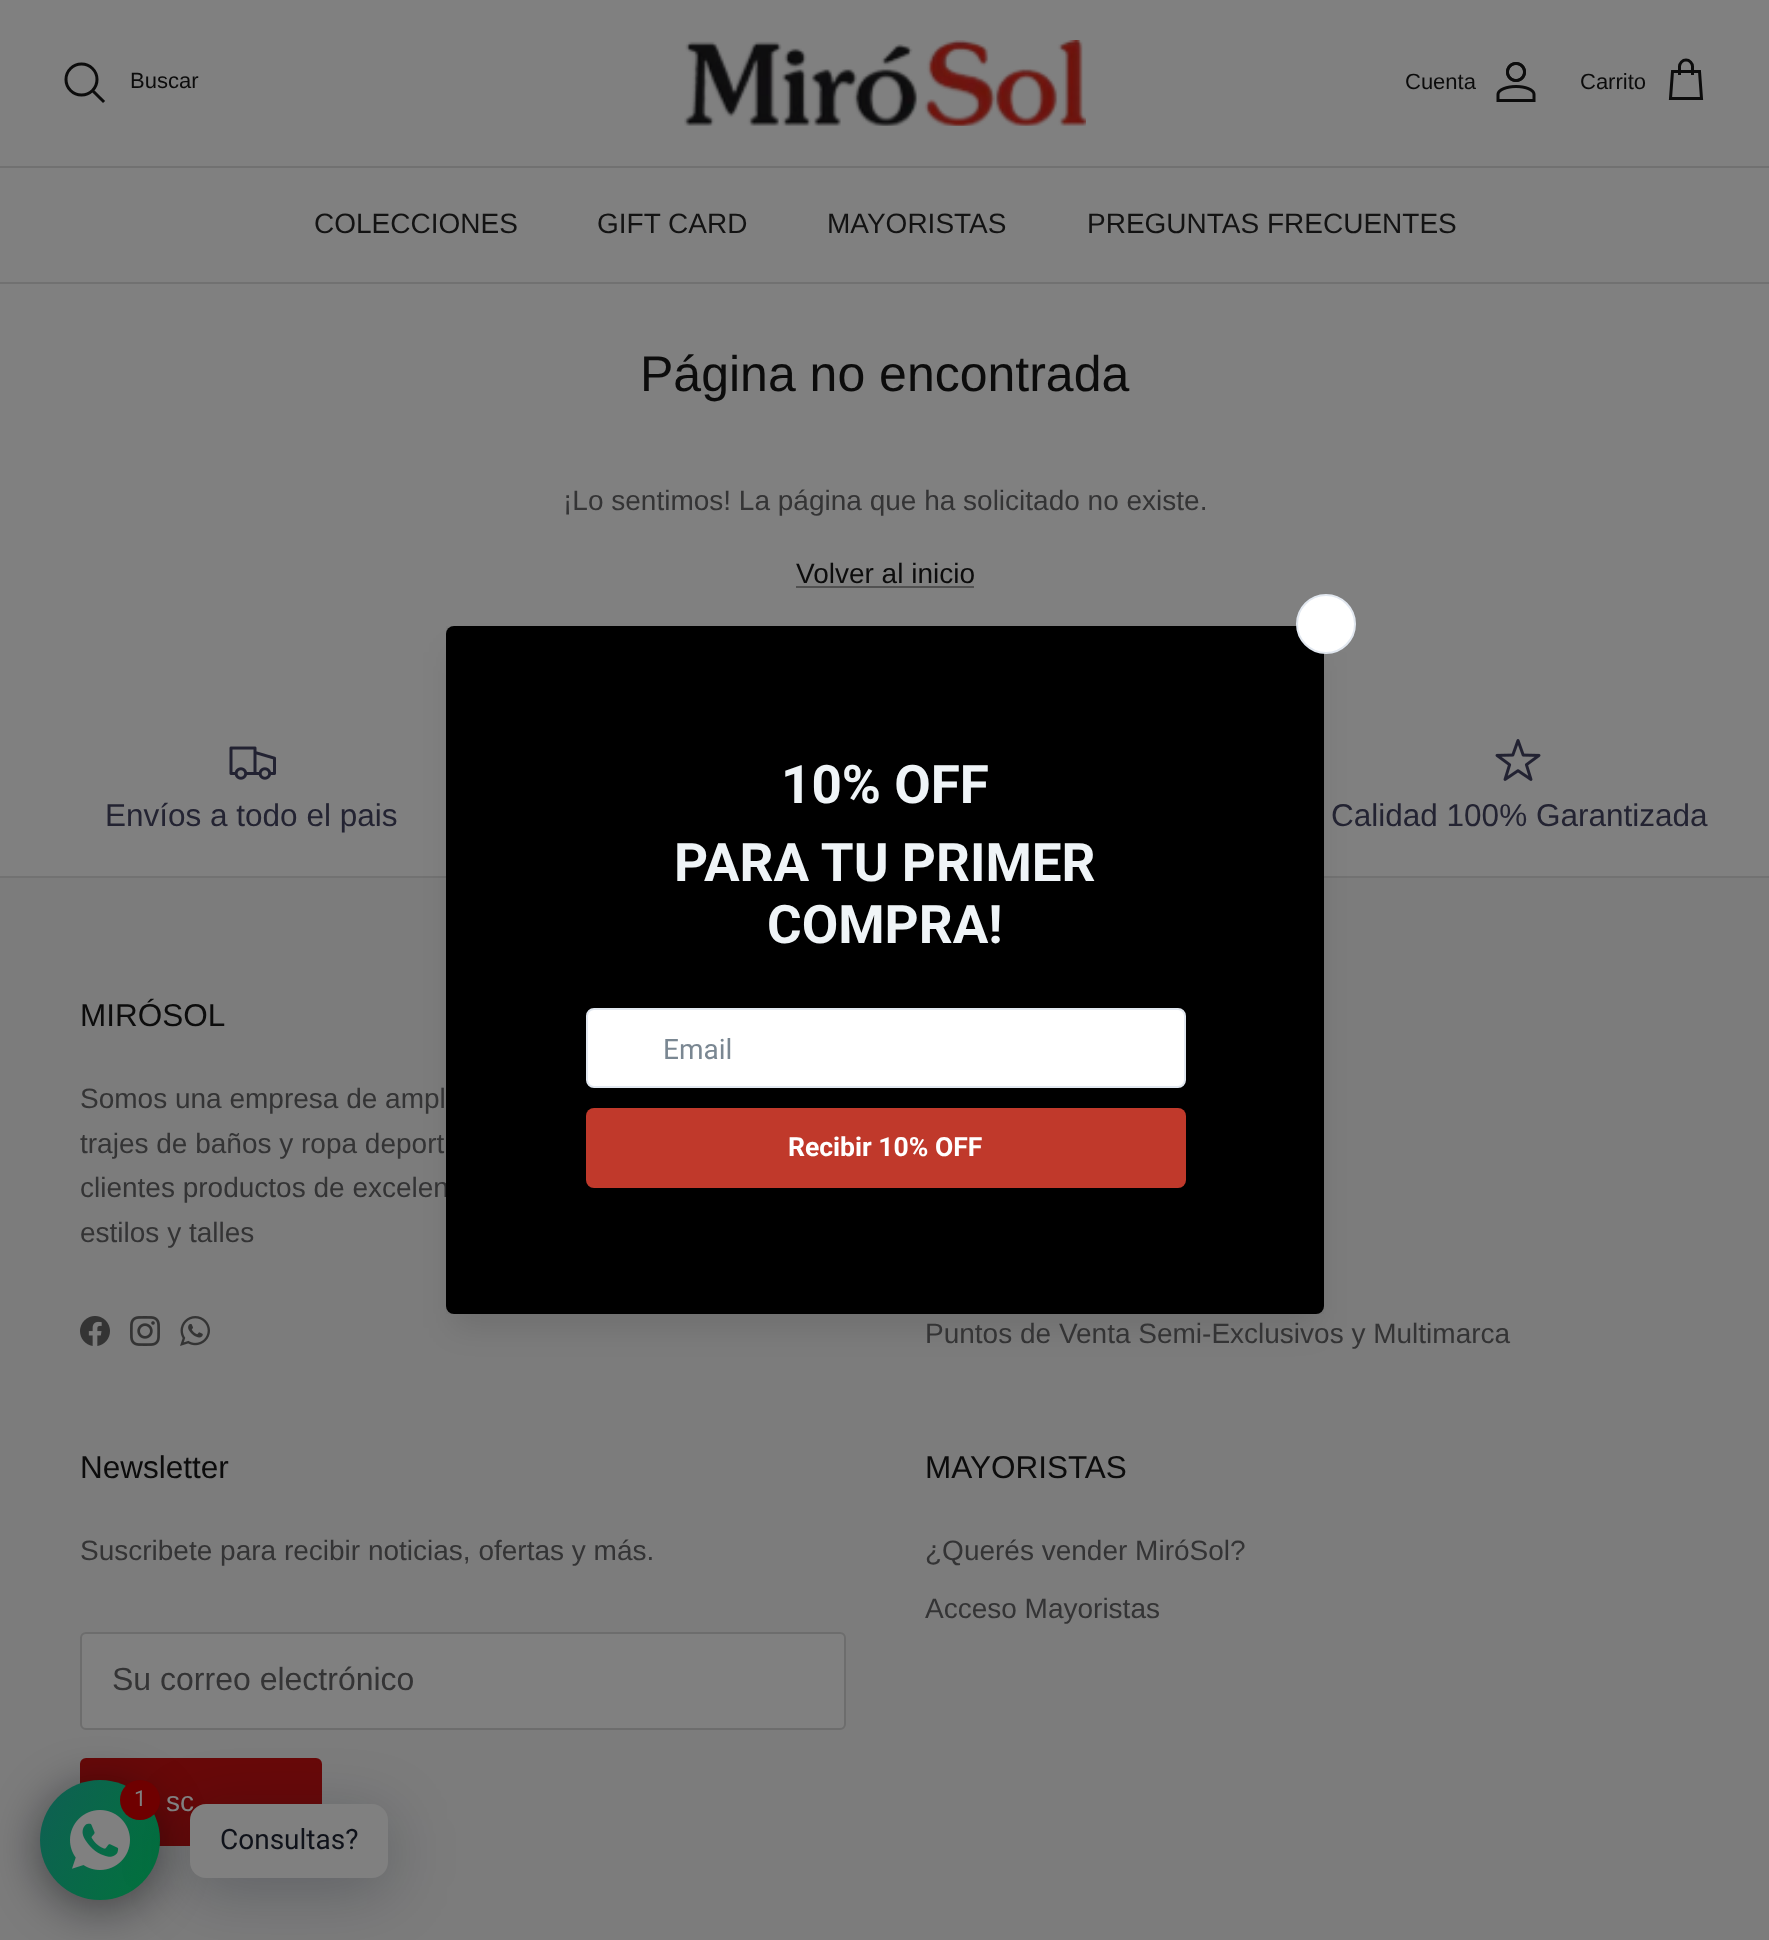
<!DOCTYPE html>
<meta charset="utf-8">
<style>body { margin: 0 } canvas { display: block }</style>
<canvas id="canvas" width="1769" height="1940"></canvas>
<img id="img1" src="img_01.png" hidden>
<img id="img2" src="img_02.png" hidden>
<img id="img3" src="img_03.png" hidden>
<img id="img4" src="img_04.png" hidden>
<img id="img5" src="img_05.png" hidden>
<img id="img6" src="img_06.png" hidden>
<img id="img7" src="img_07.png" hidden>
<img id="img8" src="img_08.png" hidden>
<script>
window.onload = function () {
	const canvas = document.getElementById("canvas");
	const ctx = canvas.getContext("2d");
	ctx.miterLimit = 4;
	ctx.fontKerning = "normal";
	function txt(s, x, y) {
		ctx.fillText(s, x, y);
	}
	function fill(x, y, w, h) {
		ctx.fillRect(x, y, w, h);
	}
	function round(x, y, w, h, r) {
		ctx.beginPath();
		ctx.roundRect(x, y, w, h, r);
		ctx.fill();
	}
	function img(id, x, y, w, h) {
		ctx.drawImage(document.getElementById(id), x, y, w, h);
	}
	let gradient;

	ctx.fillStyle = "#808080";
	fill(0, 0, 1769, 1940);
	ctx.fillStyle = "#717171";
	fill(0, 166, 1769, 2);
	ctx.beginPath();
	ctx.arc(81.5, 79.5, 15.5, 0, Math.PI * 2);
	ctx.strokeStyle = "#0C0C0C";
	ctx.lineWidth = 3;
	ctx.stroke();
	ctx.beginPath();
	ctx.moveTo(94, 92);
	ctx.lineTo(103, 101);
	ctx.lineCap = "square";
	ctx.stroke();
	img("img1", 684, 40, 402, 86);
	img("img2", 1496, 62, 40, 40);
	ctx.beginPath();
	ctx.moveTo(1692.5, 75);
	ctx.lineTo(1692.5, 66.5);
	ctx.bezierCurveTo(1692.5, 63, 1689.5, 60, 1686, 60);
	ctx.bezierCurveTo(1682.5, 60, 1679.5, 63, 1679.5, 66.5);
	ctx.lineTo(1679.5, 75);
	ctx.moveTo(1672.5, 71.5);
	ctx.lineTo(1699.5, 71.5);
	ctx.lineTo(1701.5, 98.5);
	ctx.lineTo(1670.5, 98.5);
	ctx.closePath();
	ctx.lineCap = "butt";
	ctx.stroke();
	fill(0, 282, 1769, 2);
	ctx.fillStyle = "#515151";
	fill(796, 586, 178, 2);
	ctx.fillStyle = "#7C7C7C";
	fill(0, 878, 1769, 1062);
	ctx.fillStyle = "#727272";
	fill(0, 876, 1769, 2);
	ctx.fillStyle = "rgba(0, 0, 0, 0.1)";
	ctx.filter = "blur(15px)";
	ctx.beginPath();
	ctx.roundRect(452, 652, 866, 676, 2);
	ctx.fill();
	ctx.filter = "none";
	ctx.save();
	ctx.beginPath();
	ctx.rect(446, 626, 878, 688);
	ctx.clip();
	ctx.fillStyle = "rgba(0, 0, 0, 0.12)";
	ctx.filter = "blur(20px)";
	ctx.beginPath();
	ctx.roundRect(452, 632, 866, 676, 2);
	ctx.fill();
	ctx.filter = "none";
	ctx.restore();
	img("img3", 229, 746, 47, 34);
	img("img4", 1495, 739, 46, 42);
	img("img5", 80, 1316, 30, 30);
	img("img6", 130, 1316, 30, 30);
	img("img7", 180, 1316, 30, 30);
	ctx.fillStyle = "#808080";
	ctx.beginPath();
	ctx.roundRect(81, 1633, 764, 96, 5);
	ctx.fill();
	ctx.strokeStyle = "#6D6D6D";
	ctx.lineWidth = 2;
	ctx.stroke();
	ctx.fillStyle = "#680909";
	ctx.beginPath();
	ctx.roundRect(81, 1759, 240, 86, 5);
	ctx.fill();
	ctx.strokeStyle = "#680909";
	ctx.stroke();
	ctx.fillStyle = "rgba(1, 3, 8, 0.5)";
	ctx.filter = "blur(24px)";
	ctx.beginPath();
	ctx.roundRect(40, 1788, 120, 120, 60);
	ctx.fill();
	ctx.filter = "none";
	gradient = ctx.createLinearGradient(28, 1806, 172, 1874);
	gradient.addColorStop(0, "#0F5F53");
	gradient.addColorStop(1, "#01733C");
	ctx.fillStyle = gradient;
	ctx.beginPath();
	ctx.arc(100, 1840, 60, 0, Math.PI * 2);
	ctx.fill();
	ctx.fillStyle = "rgba(0, 9, 23, 0.24)";
	ctx.filter = "blur(32px)";
	ctx.beginPath();
	ctx.roundRect(190, 1816, 198, 74, 16);
	ctx.fill();
	ctx.filter = "none";
	img("img8", 70, 1810, 60, 60);
	ctx.fillStyle = "#6F0000";
	ctx.beginPath();
	ctx.arc(140, 1800, 20, 0, Math.PI * 2);
	ctx.fill();
	ctx.fillStyle = "#808080";
	round(190, 1804, 198, 74, 16);
	ctx.font = "22px Arimo";
	ctx.fillStyle = "#0C0C0C";
	txt("Buscar", 130, 88);
	txt("Cuenta", 1405, 89);
	txt("Carrito", 1580, 89);
	ctx.font = "28px Arimo";
	ctx.fillStyle = "#131313";
	txt("COLECCIONES", 314, 233);
	txt("GIFT CARD", 597, 233);
	txt("MAYORISTAS", 827, 233);
	txt("PREGUNTAS FRECUENTES", 1087, 233);
	ctx.font = "50px Arimo";
	ctx.fillStyle = "#0C0C0C";
	txt("Página no encontrada", 640, 391);
	ctx.font = "28px Arimo";
	ctx.fillStyle = "#343435";
	txt("¡Lo sentimos! La página que ha solicitado no existe.", 563, 510);
	ctx.fillStyle = "#0C0C0C";
	txt("Volver al inicio", 796, 583);
	ctx.font = "31.5px Arimo";
	ctx.fillStyle = "#232332";
	txt("Envíos a todo el pais", 105, 826);
	txt("Calidad 100% Garantizada", 1331, 826);
	ctx.fillStyle = "#0C0C0C";
	txt("MIRÓSOL", 80, 1026);
	ctx.font = "28px Arimo";
	ctx.fillStyle = "#343435";
	txt("Somos una empresa de ampl", 80, 1108);
	txt("trajes de baños y ropa deport", 80, 1153);
	txt("clientes productos de excelen", 80, 1197);
	ctx.fillStyle = "#000000";
	round(446, 626, 878, 688, 8);
	ctx.fillStyle = "#FFFFFF";
	ctx.beginPath();
	ctx.arc(1326, 624, 29, 0, Math.PI * 2);
	ctx.fill();
	ctx.strokeStyle = "#E2E8F0";
	ctx.stroke();
	ctx.beginPath();
	ctx.roundRect(587, 1009, 598, 78, 7);
	ctx.fill();
	ctx.stroke();
	ctx.font = "28px Roboto";
	ctx.fillStyle = "#7A8792";
	txt("Email", 663, 1059);
	ctx.fillStyle = "#C0392B";
	round(586, 1108, 600, 80, 8);
	ctx.font = "bold 26.5px Roboto";
	ctx.fillStyle = "#FFFFFF";
	txt("Recibir 10% OFF", 788, 1156);
	ctx.font = "bold 53px Roboto";
	ctx.fillStyle = "#EFF4F7";
	txt("COMPRA!", 767, 943);
	txt("PARA TU PRIMER", 674, 881);
	txt("10% OFF", 781, 803);
	ctx.font = "28px Arimo";
	ctx.fillStyle = "#343435";
	txt("estilos y talles", 80, 1242);
	txt("Puntos de Venta Semi-Exclusivos y Multimarca", 925, 1343);
	ctx.font = "31.5px Arimo";
	ctx.fillStyle = "#0C0C0C";
	txt("Newsletter", 80, 1478);
	ctx.font = "28px Arimo";
	ctx.fillStyle = "#343435";
	txt("Suscribete para recibir noticias, ofertas y más.", 80, 1560);
	ctx.font = "32px Arimo";
	txt("Su correo electrónico", 112, 1690);
	ctx.font = "28px Arimo";
	ctx.fillStyle = "#808080";
	txt("sc", 166, 1811);
	ctx.font = "31.5px Arimo";
	ctx.fillStyle = "#0C0C0C";
	txt("MAYORISTAS", 925, 1478);
	ctx.font = "28px Arimo";
	ctx.fillStyle = "#343435";
	txt("¿Querés vender MiróSol?", 925, 1560);
	txt("Acceso Mayoristas", 925, 1618);
	ctx.font = "22px Roboto";
	ctx.fillStyle = "#808080";
	txt("1", 134, 1806);
	ctx.font = "28px Roboto";
	ctx.fillStyle = "#0F121A";
	txt("Consultas?", 220, 1849);
};
</script>
